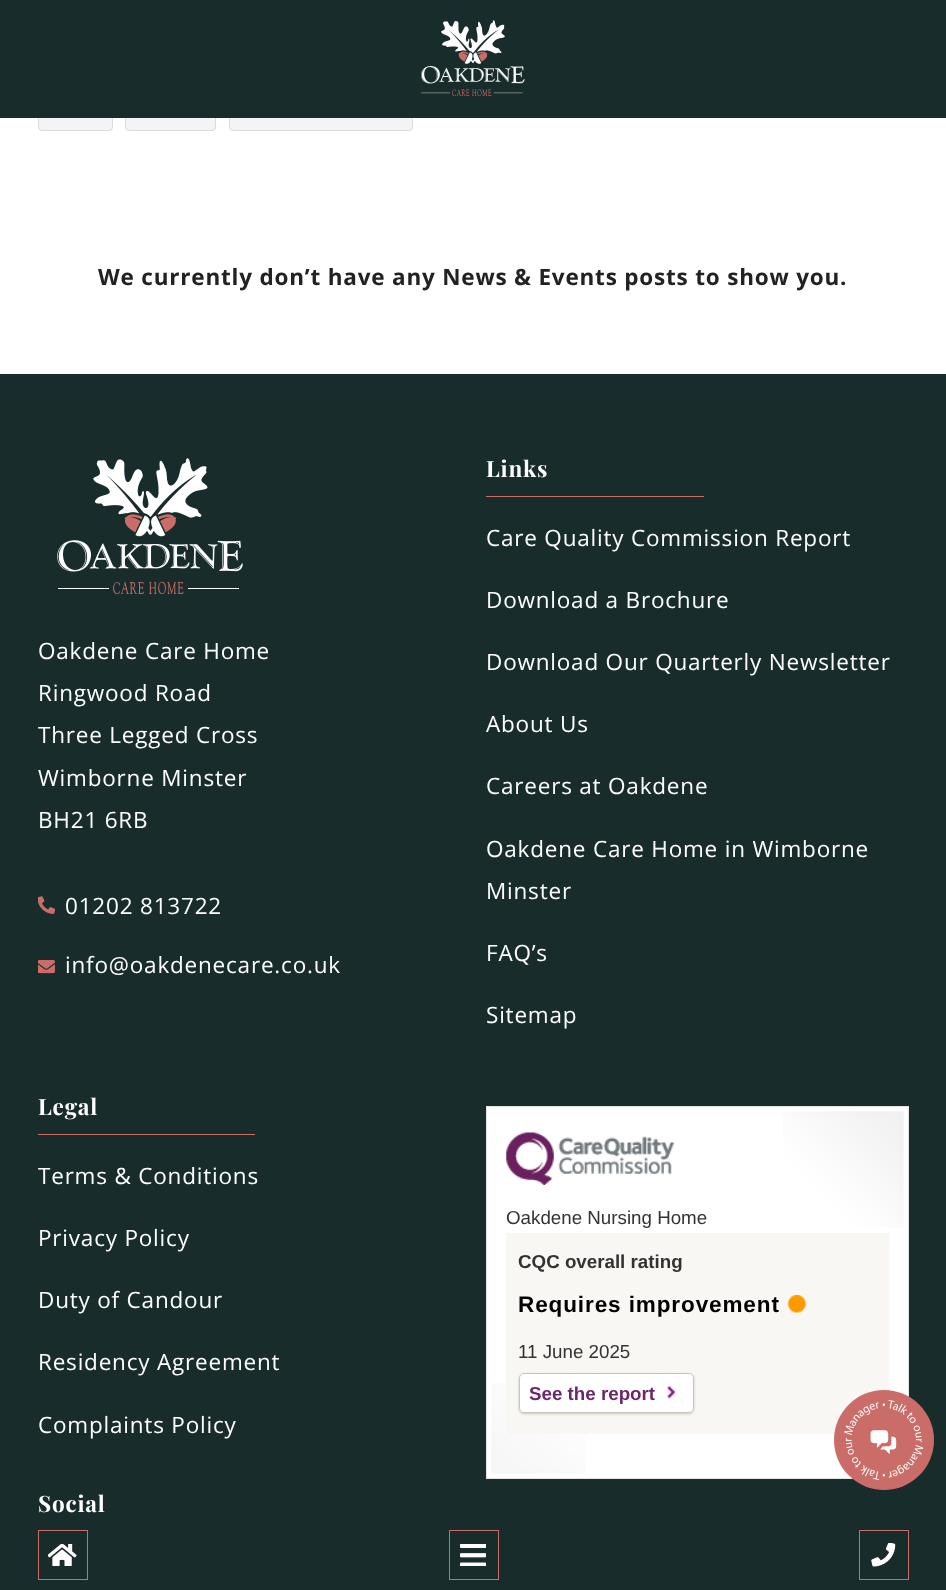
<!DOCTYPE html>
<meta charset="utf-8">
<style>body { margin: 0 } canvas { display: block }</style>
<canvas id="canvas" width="946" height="1590"></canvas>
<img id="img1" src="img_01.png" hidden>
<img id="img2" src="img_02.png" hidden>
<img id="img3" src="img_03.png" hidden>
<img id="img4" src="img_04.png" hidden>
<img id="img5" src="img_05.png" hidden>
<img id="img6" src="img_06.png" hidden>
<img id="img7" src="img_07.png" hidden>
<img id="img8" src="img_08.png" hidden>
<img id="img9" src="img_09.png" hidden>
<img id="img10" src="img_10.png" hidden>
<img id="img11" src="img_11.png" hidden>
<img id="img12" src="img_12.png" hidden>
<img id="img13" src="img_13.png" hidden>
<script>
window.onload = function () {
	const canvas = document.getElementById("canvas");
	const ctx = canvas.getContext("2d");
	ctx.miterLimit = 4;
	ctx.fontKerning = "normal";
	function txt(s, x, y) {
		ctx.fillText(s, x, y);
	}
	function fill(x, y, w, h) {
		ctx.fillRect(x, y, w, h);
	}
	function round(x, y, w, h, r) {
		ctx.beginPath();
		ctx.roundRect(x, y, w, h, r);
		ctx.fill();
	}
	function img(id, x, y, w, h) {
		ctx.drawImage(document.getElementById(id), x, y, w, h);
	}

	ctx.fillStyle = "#FFFFFF";
	fill(0, 0, 946, 1590);
	ctx.fillStyle = "#F4F4F7";
	round(38, 86, 75, 45, 4);
	ctx.beginPath();
	ctx.roundRect(38.5, 86.5, 74, 44, 3.5);
	ctx.strokeStyle = "rgba(0, 0, 0, 0.1)";
	ctx.stroke();
	round(125, 86, 91, 45, 4);
	ctx.beginPath();
	ctx.roundRect(125.5, 86.5, 90, 44, 3.5);
	ctx.stroke();
	round(229, 86, 184, 45, 4);
	ctx.beginPath();
	ctx.roundRect(229.5, 86.5, 183, 44, 3.5);
	ctx.stroke();
	ctx.fillStyle = "#172C2B";
	fill(0, 0, 946, 118);
	img("img1", 421, 20, 104, 77);
	fill(0, 374, 946, 1216);
	img("img2", 57, 458, 186, 137);
	img("img3", 38, 896, 17, 18);
	img("img4", 38, 960, 17, 14);
	ctx.fillStyle = "#CA6D68";
	fill(486, 496, 218, 1);
	fill(38, 1134, 217, 1);
	ctx.fillStyle = "#FFFFFF";
	fill(487, 1107, 421, 371);
	img("img5", 491, 1383, 95, 91);
	ctx.strokeStyle = "#E4E4E4";
	ctx.strokeRect(486.5, 1106.5, 422, 372);
	img("img6", 783, 1111, 121, 117);
	img("img7", 506, 1132, 168, 53);
	ctx.fillStyle = "#F8F7F3";
	fill(506, 1233, 383, 201);
	img("img8", 787, 1295, 20, 18);
	ctx.fillStyle = "#C9C6B9";
	ctx.filter = "blur(1px)";
	ctx.beginPath();
	ctx.roundRect(519, 1374, 175, 40, 5);
	ctx.fill();
	ctx.filter = "none";
	ctx.fillStyle = "#FFFFFF";
	round(519, 1373, 175, 40, 5);
	img("img9", 667, 1386, 9, 13);
	ctx.beginPath();
	ctx.roundRect(519.5, 1373.5, 174, 39, 4.5);
	ctx.strokeStyle = "#C9C6B9";
	ctx.stroke();
	ctx.fillStyle = "#CA6D68";
	ctx.beginPath();
	ctx.arc(884, 1440, 50, 0, Math.PI * 2);
	ctx.fill();
	img("img10", 844, 1400, 79, 80);
	ctx.strokeStyle = "#CA6D68";
	ctx.strokeRect(38.5, 1530.5, 49, 49);
	img("img11", 48, 1544, 29, 22);
	ctx.strokeRect(449.5, 1530.5, 49, 49);
	img("img12", 460, 1544, 26, 22);
	ctx.strokeRect(859.5, 1530.5, 49, 49);
	img("img13", 871, 1543, 25, 24);
	ctx.letterSpacing = "0.8px";
	ctx.font = "bold 22.5px Open Sans";
	ctx.fillStyle = "#232122";
	txt("We currently don’t have any News & Events posts to show you.", 98, 285);
	ctx.font = "22.5px Open Sans";
	ctx.fillStyle = "#FFFFFF";
	txt("Oakdene Care Home", 38, 659);
	txt("Ringwood Road", 38, 701);
	txt("Three Legged Cross", 38, 743);
	txt("Wimborne Minster", 38, 786);
	txt("BH21 6RB", 38, 828);
	txt("01202 813722", 65, 914);
	txt("info@oakdenecare.co.uk", 65, 973);
	ctx.font = "bold 22.5px Playfair Display";
	txt("Links", 486, 477);
	ctx.font = "22.5px Open Sans";
	txt("Care Quality Commission Report", 486, 546);
	txt("Download a Brochure", 486, 608);
	txt("Download Our Quarterly Newsletter", 486, 670);
	txt("About Us", 486, 732);
	txt("Careers at Oakdene", 486, 794);
	txt("Oakdene Care Home in Wimborne", 486, 857);
	txt("Minster", 486, 899);
	txt("FAQ’s", 486, 961);
	txt("Sitemap", 486, 1023);
	ctx.font = "bold 22.5px Playfair Display";
	txt("Legal", 38, 1115);
	ctx.font = "22.5px Open Sans";
	txt("Terms & Conditions", 38, 1184);
	txt("Privacy Policy", 38, 1246);
	txt("Duty of Candour", 38, 1308);
	txt("Residency Agreement", 38, 1370);
	txt("Complaints Policy", 38, 1433);
	ctx.font = "bold 22.5px Playfair Display";
	txt("Social", 38, 1512);
	ctx.letterSpacing = "0px";
	ctx.font = "18.75px Liberation Sans";
	ctx.fillStyle = "#333333";
	txt("Oakdene Nursing Home", 506, 1224);
	ctx.font = "bold 18.75px Liberation Sans";
	txt("CQC overall rating", 518, 1268);
	ctx.letterSpacing = "0.9px";
	ctx.font = "bold 22.5px Liberation Sans";
	ctx.fillStyle = "#000000";
	txt("Requires improvement", 518, 1312);
	ctx.letterSpacing = "0px";
	ctx.font = "18.75px Liberation Sans";
	ctx.fillStyle = "#333333";
	txt("11 June 2025", 518, 1358);
	ctx.font = "bold 18.75px Liberation Sans";
	ctx.fillStyle = "#6C276A";
	txt("See the report", 529, 1400);
};
</script>
